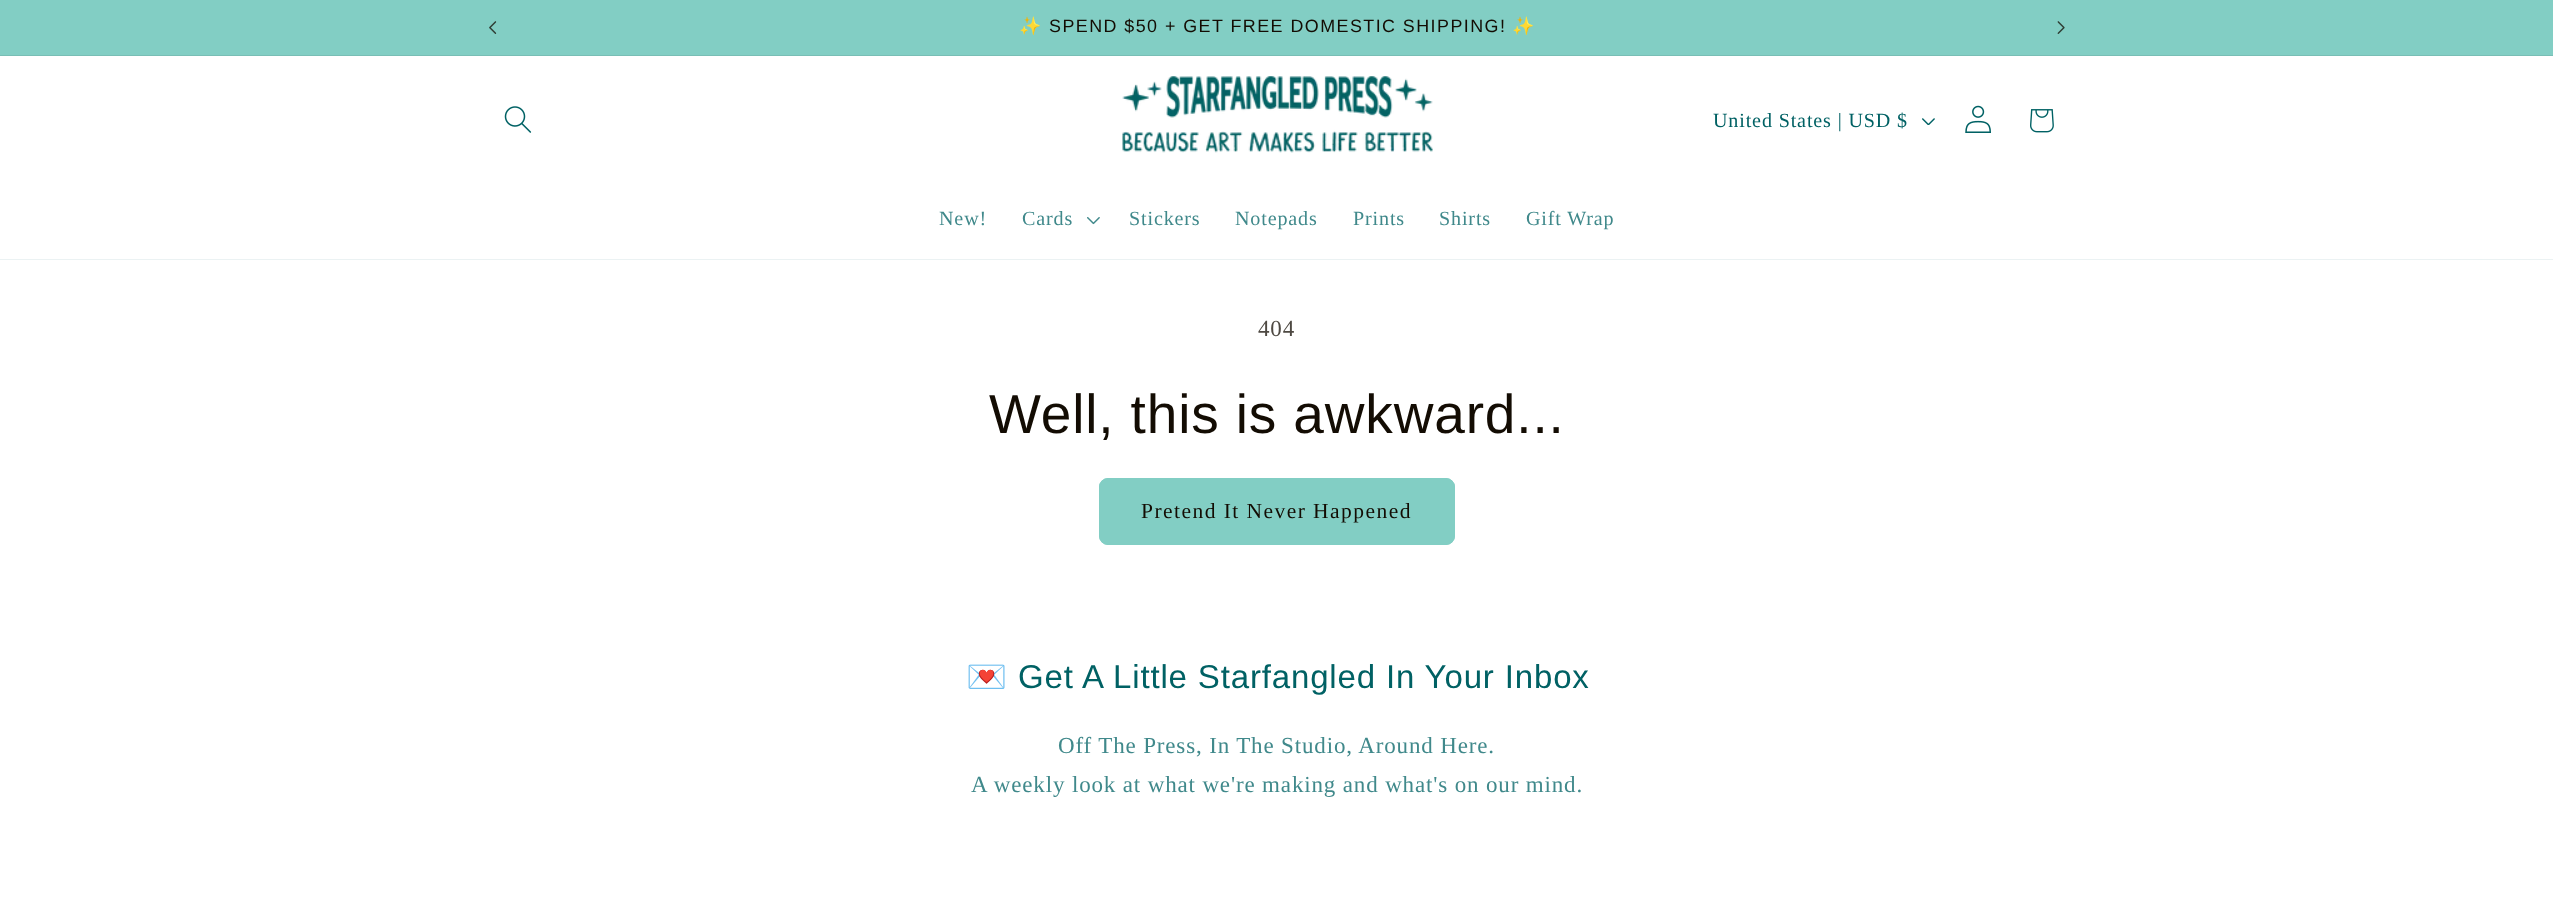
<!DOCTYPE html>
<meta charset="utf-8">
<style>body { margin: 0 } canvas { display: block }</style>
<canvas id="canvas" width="2553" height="916"></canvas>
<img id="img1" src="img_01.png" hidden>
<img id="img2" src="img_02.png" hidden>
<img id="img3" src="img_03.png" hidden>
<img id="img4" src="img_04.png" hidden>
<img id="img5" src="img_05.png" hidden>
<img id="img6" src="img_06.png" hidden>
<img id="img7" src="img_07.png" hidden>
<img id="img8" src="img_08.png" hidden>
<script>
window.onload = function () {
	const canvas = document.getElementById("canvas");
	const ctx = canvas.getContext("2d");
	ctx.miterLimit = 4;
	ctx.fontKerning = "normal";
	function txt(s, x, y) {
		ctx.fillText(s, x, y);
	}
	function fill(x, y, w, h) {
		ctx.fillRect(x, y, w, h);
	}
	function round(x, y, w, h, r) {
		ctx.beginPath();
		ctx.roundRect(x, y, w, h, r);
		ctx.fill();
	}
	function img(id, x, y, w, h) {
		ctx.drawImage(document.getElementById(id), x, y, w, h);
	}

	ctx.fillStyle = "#FFFFFF";
	fill(0, 0, 2553, 916);
	ctx.fillStyle = "#82CEC4";
	fill(0, 0, 2553, 55);
	ctx.fillStyle = "#79BEB5";
	fill(0, 55, 2553, 1);
	img("img1", 489, 21, 8, 13);
	img("img2", 2057, 21, 8, 13);
	ctx.fillStyle = "#EBF2F3";
	fill(0, 259, 2553, 1);
	img("img3", 504, 106, 28, 27);
	img("img4", 1122, 76, 311, 77);
	img("img5", 1922, 118, 13, 7);
	img("img6", 1965, 105, 26, 28);
	img("img7", 2030, 109, 24, 24);
	img("img8", 1087, 217, 13, 8);
	ctx.fillStyle = "#82CEC4";
	round(1099, 478, 356, 67, 9);
	ctx.beginPath();
	ctx.roundRect(1099.5, 478.5, 355, 66, 8.5);
	ctx.strokeStyle = "#82CEC4";
	ctx.stroke();
	ctx.letterSpacing = "1.45px";
	ctx.font = "17.9px Noto Color Emoji";
	ctx.fillStyle = "#130C03";
	txt("✨", 1019, 32);
	ctx.font = "17.9px Liberation Sans";
	txt("SPEND $50 + GET FREE DOMESTIC SHIPPING!", 1049, 32);
	ctx.font = "17.9px Noto Color Emoji";
	txt("✨", 1512, 32);
	ctx.letterSpacing = "0.85px";
	ctx.font = "20.1px Liberation Serif";
	ctx.fillStyle = "#006164";
	txt("United States | USD $", 1713, 127);
	ctx.fillStyle = "#40898B";
	txt("New!", 939, 225);
	txt("Cards", 1022, 225);
	txt("Stickers", 1129, 225);
	txt("Notepads", 1235, 225);
	txt("Prints", 1353, 225);
	txt("Shirts", 1439, 225);
	txt("Gift Wrap", 1526, 225);
	ctx.font = "23px Liberation Serif";
	ctx.fillStyle = "#4E4942";
	txt("404", 1258, 336);
	ctx.font = "55px Liberation Sans";
	ctx.fillStyle = "#130C03";
	txt("Well, this is awkward...", 989, 433);
	ctx.letterSpacing = "1.45px";
	ctx.font = "21.5px Liberation Serif";
	txt("Pretend It Never Happened", 1141, 518);
	ctx.letterSpacing = "0.85px";
	ctx.font = "33px Noto Color Emoji";
	ctx.fillStyle = "#006164";
	txt("💌", 966, 688);
	ctx.font = "33px Liberation Sans";
	txt("Get A Little Starfangled In Your Inbox", 1018, 688);
	ctx.font = "23px Liberation Serif";
	ctx.fillStyle = "#40898B";
	txt("Off The Press, In The Studio, Around Here.", 1058, 753);
	txt("A weekly look at what we're making and what's on our mind.", 971, 792);
};
</script>
